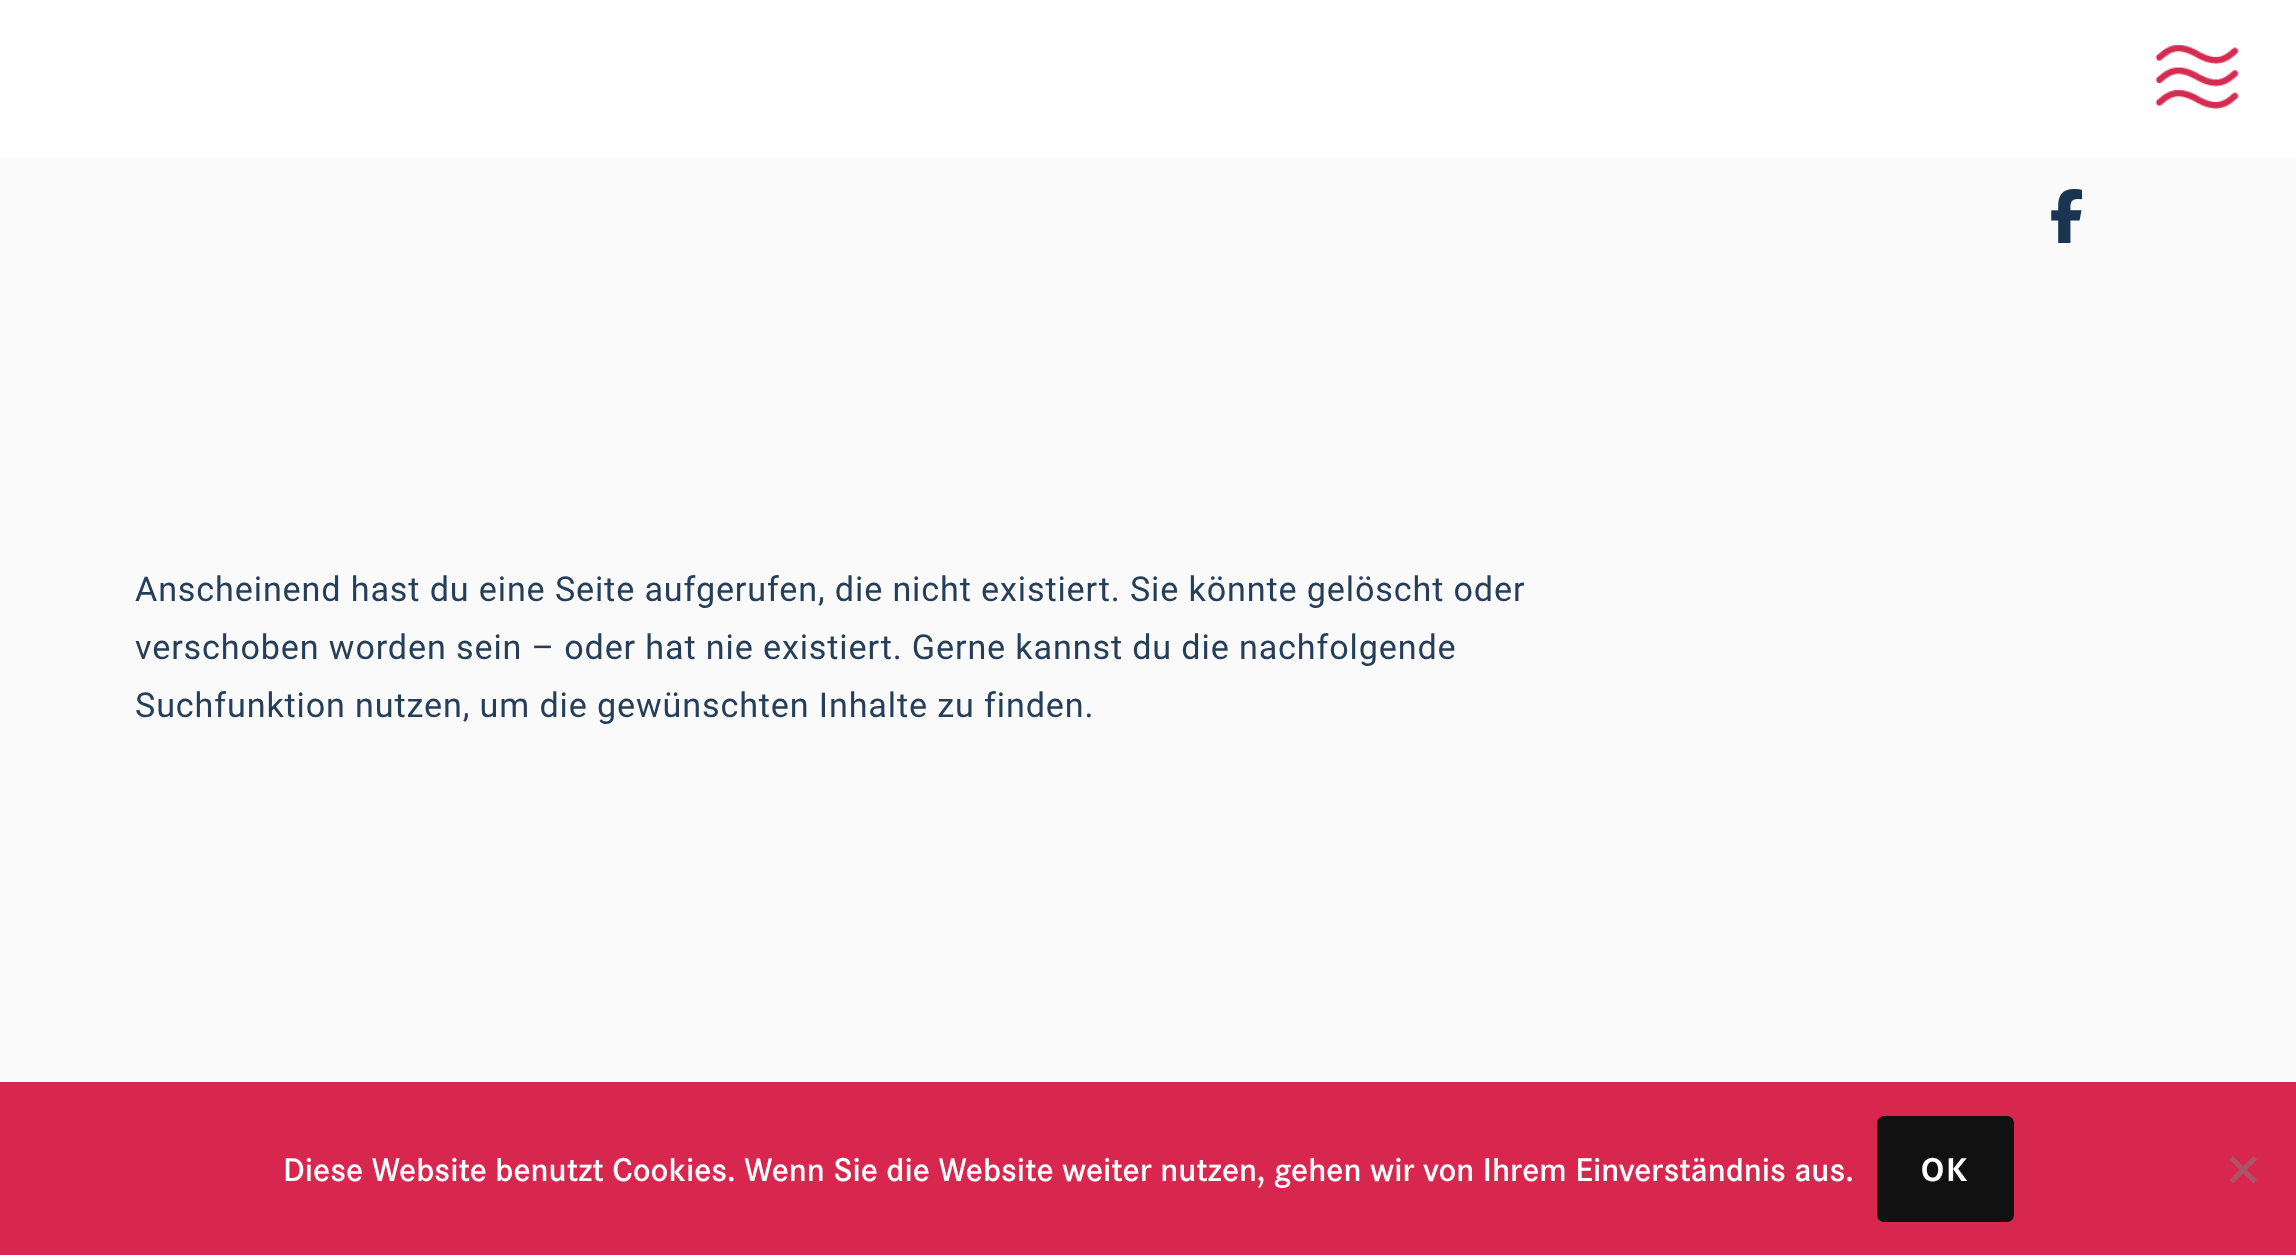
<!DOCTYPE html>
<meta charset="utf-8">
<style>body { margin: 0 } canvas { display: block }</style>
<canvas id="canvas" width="2296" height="1255"></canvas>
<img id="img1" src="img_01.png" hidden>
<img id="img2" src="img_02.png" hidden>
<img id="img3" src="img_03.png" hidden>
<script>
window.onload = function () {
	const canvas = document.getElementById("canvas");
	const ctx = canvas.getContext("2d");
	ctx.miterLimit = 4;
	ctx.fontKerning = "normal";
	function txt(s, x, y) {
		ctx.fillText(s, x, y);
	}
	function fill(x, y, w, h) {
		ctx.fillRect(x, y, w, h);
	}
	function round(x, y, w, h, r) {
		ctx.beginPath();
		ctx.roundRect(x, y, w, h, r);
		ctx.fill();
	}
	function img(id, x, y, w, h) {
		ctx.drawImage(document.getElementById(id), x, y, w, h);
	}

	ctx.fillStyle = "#FAFAFA";
	fill(0, 0, 2296, 1255);
	ctx.fillStyle = "#FFFFFF";
	fill(0, 0, 2296, 158);
	img("img1", 2155, 45, 84, 20);
	img("img2", 2155, 67, 84, 20);
	img("img1", 2155, 90, 84, 20);
	img("img3", 2051, 189, 32, 54);
	ctx.fillStyle = "#D7274E";
	fill(0, 1082, 2296, 173);
	ctx.fillStyle = "#111111";
	round(1877, 1116, 137, 106, 7);
	ctx.fillStyle = "#AC5467";
	ctx.beginPath();
	ctx.moveTo(2253.5, 1156);
	ctx.lineTo(2257, 1159.5);
	ctx.lineTo(2233, 1183.5);
	ctx.lineTo(2229.5, 1180);
	ctx.closePath();
	ctx.fill();
	ctx.beginPath();
	ctx.moveTo(2229.5, 1159.5);
	ctx.lineTo(2233, 1156);
	ctx.lineTo(2257, 1180);
	ctx.lineTo(2253.5, 1183.5);
	ctx.closePath();
	ctx.fill();
	ctx.letterSpacing = "0.85px";
	ctx.font = "34.2px Roboto";
	ctx.fillStyle = "#253E5A";
	txt("Anscheinend hast du eine Seite aufgerufen, die nicht existiert. Sie könnte gelöscht oder", 135, 601);
	txt("verschoben worden sein – oder hat nie existiert. Gerne kannst du die nachfolgende", 135, 659);
	txt("Suchfunktion nutzen, um die gewünschten Inhalte zu finden.", 135, 717);
	ctx.letterSpacing = "0px";
	ctx.font = "600 34.2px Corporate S";
	ctx.fillStyle = "#FFFFFF";
	txt("Diese Website benutzt Cookies. Wenn Sie die Website weiter nutzen, gehen wir von Ihrem Einverständnis aus.", 283, 1181);
	ctx.letterSpacing = "2px";
	ctx.font = "bold 34.2px Corporate S";
	txt("OK", 1921, 1181);
};
</script>
